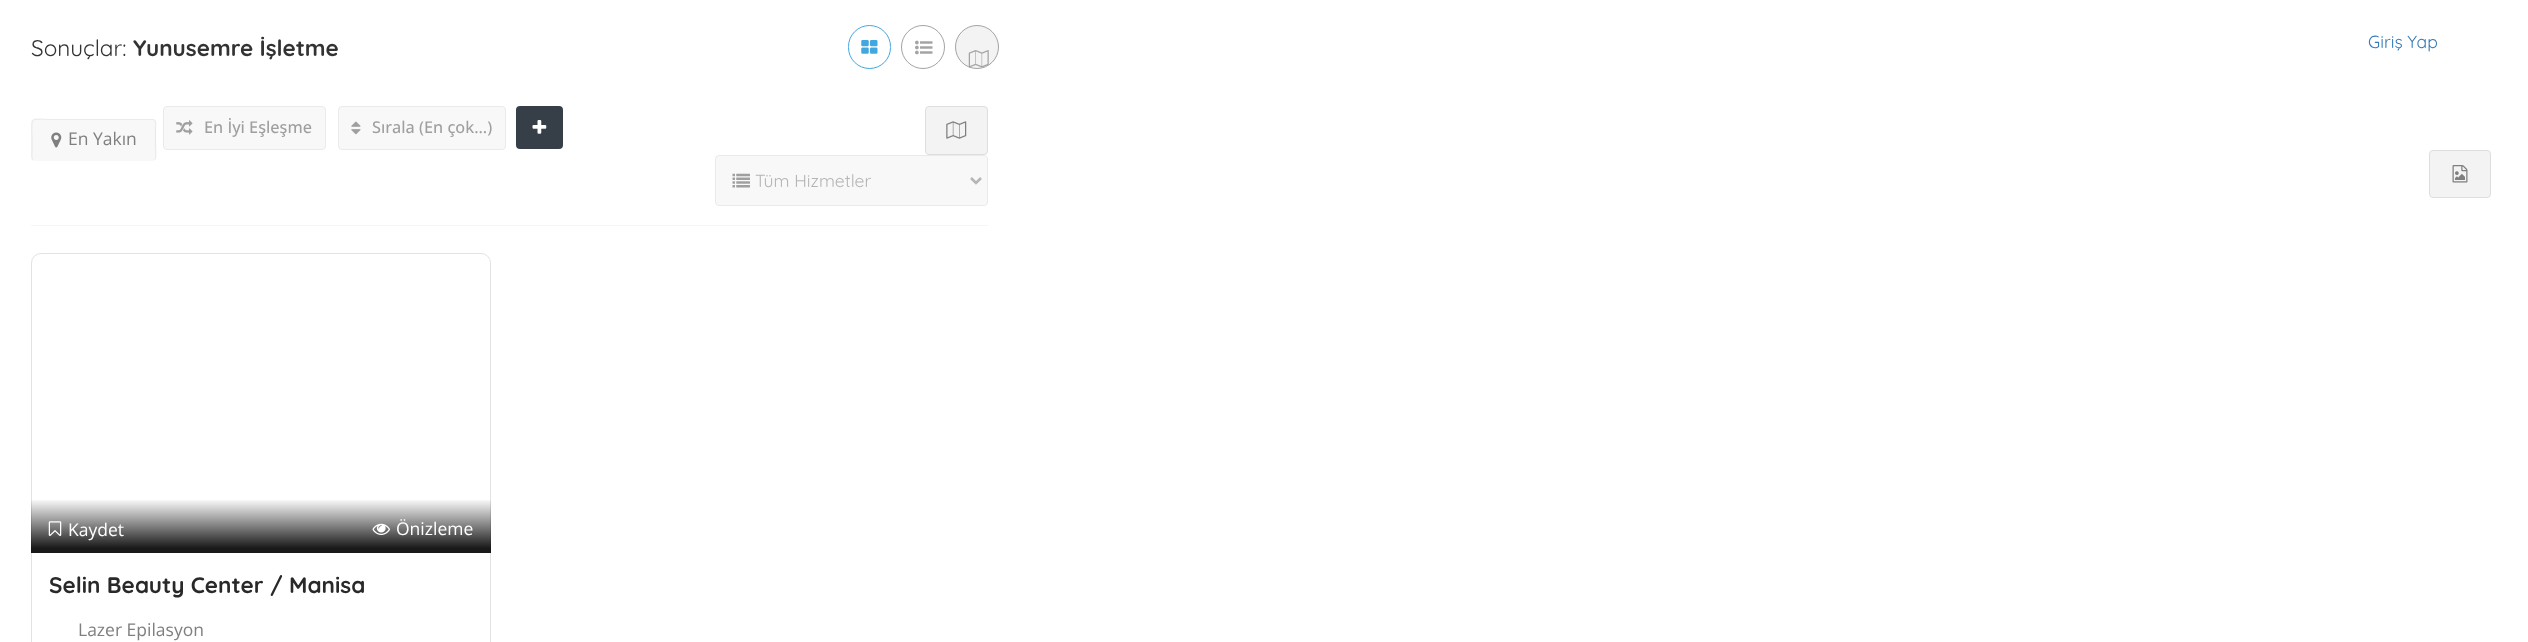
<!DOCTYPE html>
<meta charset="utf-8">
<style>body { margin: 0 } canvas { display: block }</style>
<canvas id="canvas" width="2528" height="642"></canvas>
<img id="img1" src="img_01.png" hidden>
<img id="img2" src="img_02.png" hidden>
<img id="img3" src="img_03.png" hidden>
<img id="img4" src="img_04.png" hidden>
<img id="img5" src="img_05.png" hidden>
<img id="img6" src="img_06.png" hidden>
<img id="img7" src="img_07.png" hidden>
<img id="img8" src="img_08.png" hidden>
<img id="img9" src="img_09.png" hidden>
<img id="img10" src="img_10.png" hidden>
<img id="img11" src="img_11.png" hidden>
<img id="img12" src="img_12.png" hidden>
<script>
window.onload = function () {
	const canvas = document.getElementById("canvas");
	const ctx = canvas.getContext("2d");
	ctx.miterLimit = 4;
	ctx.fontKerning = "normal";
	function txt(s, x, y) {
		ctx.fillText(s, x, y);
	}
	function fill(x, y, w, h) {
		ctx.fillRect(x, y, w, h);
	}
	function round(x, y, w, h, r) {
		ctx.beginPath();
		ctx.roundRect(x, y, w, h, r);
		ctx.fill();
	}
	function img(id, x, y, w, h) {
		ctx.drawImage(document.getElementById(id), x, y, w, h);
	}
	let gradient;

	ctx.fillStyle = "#FFFFFF";
	fill(0, 0, 2528, 642);
	ctx.beginPath();
	ctx.roundRect(848.5, 25.5, 42, 43, 21);
	ctx.strokeStyle = "#42A7DF";
	ctx.stroke();
	img("img1", 861, 40, 17, 14);
	ctx.beginPath();
	ctx.arc(923, 47, 21.5, 0, Math.PI * 2);
	ctx.strokeStyle = "#A3A3A3";
	ctx.stroke();
	img("img2", 915, 40, 18, 15);
	ctx.fillStyle = "#F3F3F3";
	ctx.beginPath();
	ctx.arc(977, 47, 21.5, 0, Math.PI * 2);
	ctx.fill();
	ctx.stroke();
	img("img3", 968, 50, 21, 18);
	ctx.fillStyle = "#F6F6F6";
	fill(31, 225, 957, 1);
	ctx.fillStyle = "#F8F8F8";
	ctx.beginPath();
	ctx.roundRect(163.5, 106.5, 162, 43, 3.5);
	ctx.fill();
	ctx.strokeStyle = "#EAEAEA";
	ctx.stroke();
	img("img4", 176, 120, 17, 15);
	ctx.beginPath();
	ctx.roundRect(338.5, 106.5, 167, 43, 3.5);
	ctx.fill();
	ctx.stroke();
	img("img5", 351, 121, 10, 14);
	ctx.fillStyle = "#363F48";
	round(516, 106, 47, 43, 4);
	img("img6", 532, 120, 15, 14);
	ctx.fillStyle = "#F8F8F8";
	round(31, 119, 125, 42, 4);
	ctx.beginPath();
	ctx.moveTo(33, 159.5);
	ctx.bezierCurveTo(31, 158, 32, 153, 32, 151.5);
	ctx.lineTo(32, 140);
	ctx.bezierCurveTo(32, 114.5, 27.5, 119.5, 54.5, 119.5);
	ctx.lineTo(152.5, 119.5);
	ctx.bezierCurveTo(157, 119.5, 155.5, 126, 155.5, 128.5);
	ctx.lineTo(155.5, 146);
	ctx.bezierCurveTo(155.5, 148.5, 157, 157.5, 154.5, 159.5);
	ctx.lineWidth = 1.2;
	ctx.stroke();
	img("img7", 51, 132, 11, 16);
	ctx.beginPath();
	ctx.roundRect(715.5, 155.5, 272, 50, 3.5);
	ctx.fill();
	ctx.lineWidth = 1;
	ctx.stroke();
	img("img8", 732, 173, 18, 15);
	fill(985, 156, 1, 49);
	ctx.beginPath();
	ctx.moveTo(971, 178);
	ctx.lineTo(976, 183);
	ctx.lineTo(981, 178);
	ctx.strokeStyle = "#B5B5B5";
	ctx.lineWidth = 2.5;
	ctx.stroke();
	ctx.fillStyle = "#F3F3F3";
	ctx.beginPath();
	ctx.roundRect(925.5, 106.5, 62, 48, 3.5);
	ctx.fill();
	ctx.strokeStyle = "#DEDEDE";
	ctx.lineWidth = 1;
	ctx.stroke();
	img("img9", 946, 121, 21, 18);
	ctx.beginPath();
	ctx.roundRect(31.5, 253.5, 459, 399, 9.5);
	ctx.strokeStyle = "#E3E3E3";
	ctx.stroke();
	gradient = ctx.createLinearGradient(261, 553, 261, 495);
	gradient.addColorStop(0.08, "rgba(0, 0, 0, 0.9)");
	gradient.addColorStop(0.94, "rgba(0, 0, 0, 0)");
	ctx.fillStyle = gradient;
	fill(31, 500, 460, 53);
	img("img10", 48, 521, 14, 15);
	img("img11", 372, 523, 18, 12);
	ctx.fillStyle = "#F3F3F3";
	ctx.beginPath();
	ctx.roundRect(2429.5, 150.5, 61, 47, 3.5);
	ctx.fill();
	ctx.strokeStyle = "#DEDEDE";
	ctx.stroke();
	img("img12", 2452, 165, 16, 18);
	ctx.font = "22.5px Quicksand";
	ctx.fillStyle = "#333333";
	txt("Sonuçlar:", 31, 56);
	ctx.font = "bold 22.5px Quicksand";
	txt("Yunusemre İşletme", 133, 56);
	ctx.font = "500 16.25px Open Sans";
	ctx.fillStyle = "#9F9F9F";
	txt("En İyi Eşleşme", 204, 133);
	txt("Sırala (En çok...)", 372, 133);
	ctx.font = "17.5px Open Sans";
	ctx.fillStyle = "#7F7F7F";
	txt("En Yakın", 68, 145);
	ctx.font = "17.5px Quicksand";
	ctx.fillStyle = "#B5B5B5";
	txt("Tüm Hizmetler", 755, 187);
	ctx.font = "17.5px Open Sans";
	ctx.fillStyle = "#FFFFFF";
	txt("Kaydet", 68, 536);
	txt("Önizleme", 396, 535);
	ctx.font = "bold 22.5px Quicksand";
	ctx.fillStyle = "#292929";
	txt("Selin Beauty Center / Manisa", 49, 593);
	ctx.font = "17.5px Open Sans";
	ctx.fillStyle = "#7F7F7F";
	txt("Lazer Epilasyon", 78, 636);
	ctx.font = "17.5px Quicksand";
	ctx.fillStyle = "#337AB7";
	txt("Giriş Yap", 2368, 48);
};
</script>
